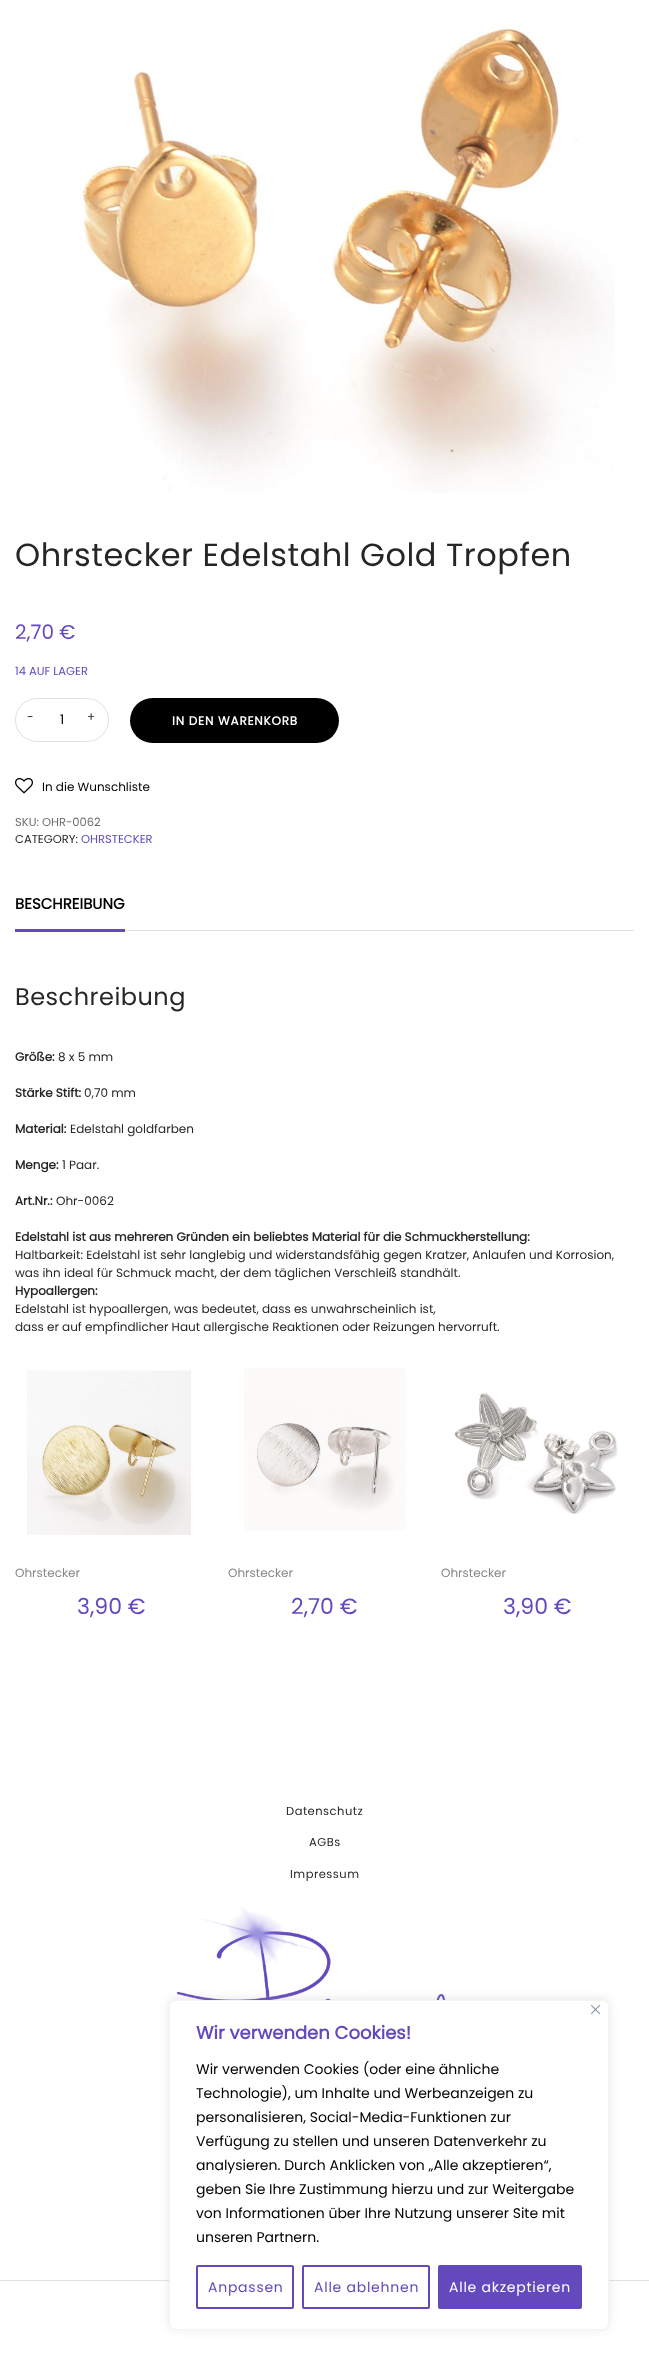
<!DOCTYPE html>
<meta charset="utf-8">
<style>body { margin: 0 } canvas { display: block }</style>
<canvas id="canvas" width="649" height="2370"></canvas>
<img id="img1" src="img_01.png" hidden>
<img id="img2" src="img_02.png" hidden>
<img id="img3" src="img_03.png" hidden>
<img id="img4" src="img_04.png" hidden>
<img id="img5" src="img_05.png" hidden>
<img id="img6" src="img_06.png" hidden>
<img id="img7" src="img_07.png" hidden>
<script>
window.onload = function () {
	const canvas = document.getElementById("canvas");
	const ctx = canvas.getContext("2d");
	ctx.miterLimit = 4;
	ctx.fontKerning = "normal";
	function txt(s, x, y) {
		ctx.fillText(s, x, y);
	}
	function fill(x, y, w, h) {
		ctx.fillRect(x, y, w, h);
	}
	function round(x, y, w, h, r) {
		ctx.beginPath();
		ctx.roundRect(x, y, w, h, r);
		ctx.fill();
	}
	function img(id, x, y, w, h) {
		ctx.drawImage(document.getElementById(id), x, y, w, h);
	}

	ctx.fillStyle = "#FFFFFF";
	fill(0, 0, 649, 2370);
	img("img1", 77, 25, 538, 468);
	ctx.beginPath();
	ctx.roundRect(15.5, 698.5, 93, 43, 21.5);
	ctx.strokeStyle = "#E1E1E1";
	ctx.stroke();
	ctx.fillStyle = "#000000";
	round(130, 698, 209, 45, 22.5);
	img("img2", 15, 778, 18, 16);
	ctx.fillStyle = "#E1E1E1";
	fill(125, 930, 509, 1);
	ctx.fillStyle = "#6349BD";
	fill(15, 929, 110, 3);
	img("img3", 27, 1370, 164, 165);
	img("img4", 244, 1368, 162, 162);
	img("img5", 454, 1393, 164, 129);
	img("img6", 176, 1907, 270, 93);
	ctx.fillStyle = "#E1E1E1";
	fill(0, 2280, 649, 1);
	ctx.fillStyle = "rgba(172, 171, 171, 0.3)";
	ctx.filter = "blur(5px)";
	ctx.beginPath();
	ctx.roundRect(169, 1999, 440, 330, 6);
	ctx.fill();
	ctx.filter = "none";
	ctx.fillStyle = "#FFFFFF";
	ctx.beginPath();
	ctx.roundRect(169.5, 2000.5, 439, 329, 5.5);
	ctx.fill();
	ctx.strokeStyle = "#F4F4F4";
	ctx.stroke();
	img("img7", 591, 2005, 9, 9);
	ctx.beginPath();
	ctx.roundRect(197, 2266, 96, 42, 1);
	ctx.strokeStyle = "#6349BD";
	ctx.lineWidth = 2;
	ctx.stroke();
	ctx.beginPath();
	ctx.roundRect(303, 2266, 126, 42, 1);
	ctx.stroke();
	ctx.fillStyle = "#6349BD";
	ctx.beginPath();
	ctx.roundRect(439, 2266, 142, 42, 1);
	ctx.fill();
	ctx.stroke();
	ctx.letterSpacing = "0.5px";
	ctx.font = "32px Poppins";
	ctx.fillStyle = "#262626";
	txt("Ohrstecker Edelstahl Gold Tropfen", 15, 566);
	ctx.letterSpacing = "0px";
	ctx.font = "20px Poppins";
	ctx.fillStyle = "#6349BD";
	txt("2,70 €", 15, 639);
	ctx.font = "11.5px Poppins";
	txt("14 AUF LAGER", 15, 675);
	ctx.font = "12px Poppins";
	ctx.fillStyle = "#262626";
	txt("-", 27, 721);
	txt("+", 87, 721);
	ctx.font = "13px Poppins";
	ctx.fillStyle = "#000000";
	txt("1", 60, 724);
	ctx.letterSpacing = "0.75px";
	ctx.font = "bold 12px Poppins";
	ctx.fillStyle = "#FFFFFF";
	txt("IN DEN WARENKORB", 172, 725);
	ctx.letterSpacing = "0px";
	ctx.font = "12px Poppins";
	ctx.fillStyle = "#000000";
	txt("In die Wunschliste", 42, 791);
	ctx.font = "11.5px Poppins";
	ctx.fillStyle = "#6C6C6C";
	txt("SKU: OHR-0062", 15, 826);
	ctx.fillStyle = "#262626";
	txt("CATEGORY:", 15, 843);
	ctx.fillStyle = "#6349BD";
	txt("OHRSTECKER", 81, 843);
	ctx.font = "bold 15px Poppins";
	ctx.fillStyle = "#000000";
	txt("BESCHREIBUNG", 15, 909);
	ctx.letterSpacing = "0.5px";
	ctx.font = "24px Poppins";
	ctx.fillStyle = "#262626";
	txt("Beschreibung", 15, 1005);
	ctx.letterSpacing = "0px";
	ctx.font = "bold 12px Poppins";
	txt("Größe:", 15, 1061);
	ctx.font = "12px Poppins";
	txt("8 x 5 mm", 58, 1061);
	ctx.font = "bold 12px Poppins";
	txt("Stärke Stift:", 15, 1097);
	ctx.font = "12px Poppins";
	txt("0,70 mm", 84, 1097);
	ctx.font = "bold 12px Poppins";
	txt("Material:", 15, 1133);
	ctx.font = "12px Poppins";
	txt("Edelstahl goldfarben", 70, 1133);
	ctx.font = "bold 12px Poppins";
	txt("Menge:", 15, 1169);
	ctx.font = "12px Poppins";
	txt("1 Paar.", 62, 1169);
	ctx.font = "bold 12px Poppins";
	txt("Art.Nr.:", 15, 1205);
	ctx.font = "12px Poppins";
	txt("Ohr-0062", 56, 1205);
	ctx.font = "bold 12px Poppins";
	txt("Edelstahl ist aus mehreren Gründen ein beliebtes Material für die Schmuckherstellung:", 15, 1241);
	ctx.font = "12px Poppins";
	txt("Haltbarkeit: Edelstahl ist sehr langlebig und widerstandsfähig gegen Kratzer, Anlaufen und Korrosion,", 15, 1259);
	txt("was ihn ideal für Schmuck macht, der dem täglichen Verschleiß standhält.", 15, 1277);
	ctx.font = "bold 12px Poppins";
	txt("Hypoallergen:", 15, 1295);
	ctx.font = "12px Poppins";
	txt("Edelstahl ist hypoallergen, was bedeutet, dass es unwahrscheinlich ist,", 15, 1313);
	txt("dass er auf empfindlicher Haut allergische Reaktionen oder Reizungen hervorruft.", 15, 1331);
	ctx.fillStyle = "#888686";
	txt("Ohrstecker", 15, 1577);
	ctx.font = "22px Poppins";
	ctx.fillStyle = "#6349BD";
	txt("3,90 €", 77, 1614);
	ctx.font = "12px Poppins";
	ctx.fillStyle = "#888686";
	txt("Ohrstecker", 228, 1577);
	ctx.font = "22px Poppins";
	ctx.fillStyle = "#6349BD";
	txt("2,70 €", 291, 1614);
	ctx.font = "12px Poppins";
	ctx.fillStyle = "#888686";
	txt("Ohrstecker", 441, 1577);
	ctx.font = "22px Poppins";
	ctx.fillStyle = "#6349BD";
	txt("3,90 €", 503, 1614);
	ctx.letterSpacing = "0.5px";
	ctx.font = "11.5px Poppins";
	ctx.fillStyle = "#262626";
	txt("Datenschutz", 286, 1815);
	txt("AGBs", 309, 1846);
	txt("Impressum", 290, 1878);
	ctx.letterSpacing = "0px";
	ctx.font = "bold 18px Poppins";
	ctx.fillStyle = "#6349BD";
	txt("Wir verwenden Cookies!", 196, 2039);
	ctx.font = "14px Poppins";
	ctx.fillStyle = "#000000";
	txt("Wir verwenden Cookies (oder eine ähnliche", 196, 2074);
	txt("Technologie), um Inhalte und Werbeanzeigen zu", 196, 2098);
	txt("personalisieren, Social-Media-Funktionen zur", 196, 2122);
	txt("Verfügung zu stellen und unseren Datenverkehr zu", 196, 2146);
	txt("analysieren. Durch Anklicken von „Alle akzeptieren“,", 196, 2170);
	txt("geben Sie Ihre Zustimmung hierzu und zur Weitergabe", 196, 2194);
	txt("von Informationen über Ihre Nutzung unserer Site mit", 196, 2218);
	txt("unseren Partnern.", 196, 2242);
	ctx.letterSpacing = "0.75px";
	ctx.fillStyle = "#6349BD";
	txt("Anpassen", 208, 2292);
	txt("Alle ablehnen", 314, 2292);
	ctx.fillStyle = "#FFFFFF";
	txt("Alle akzeptieren", 449, 2292);
};
</script>
